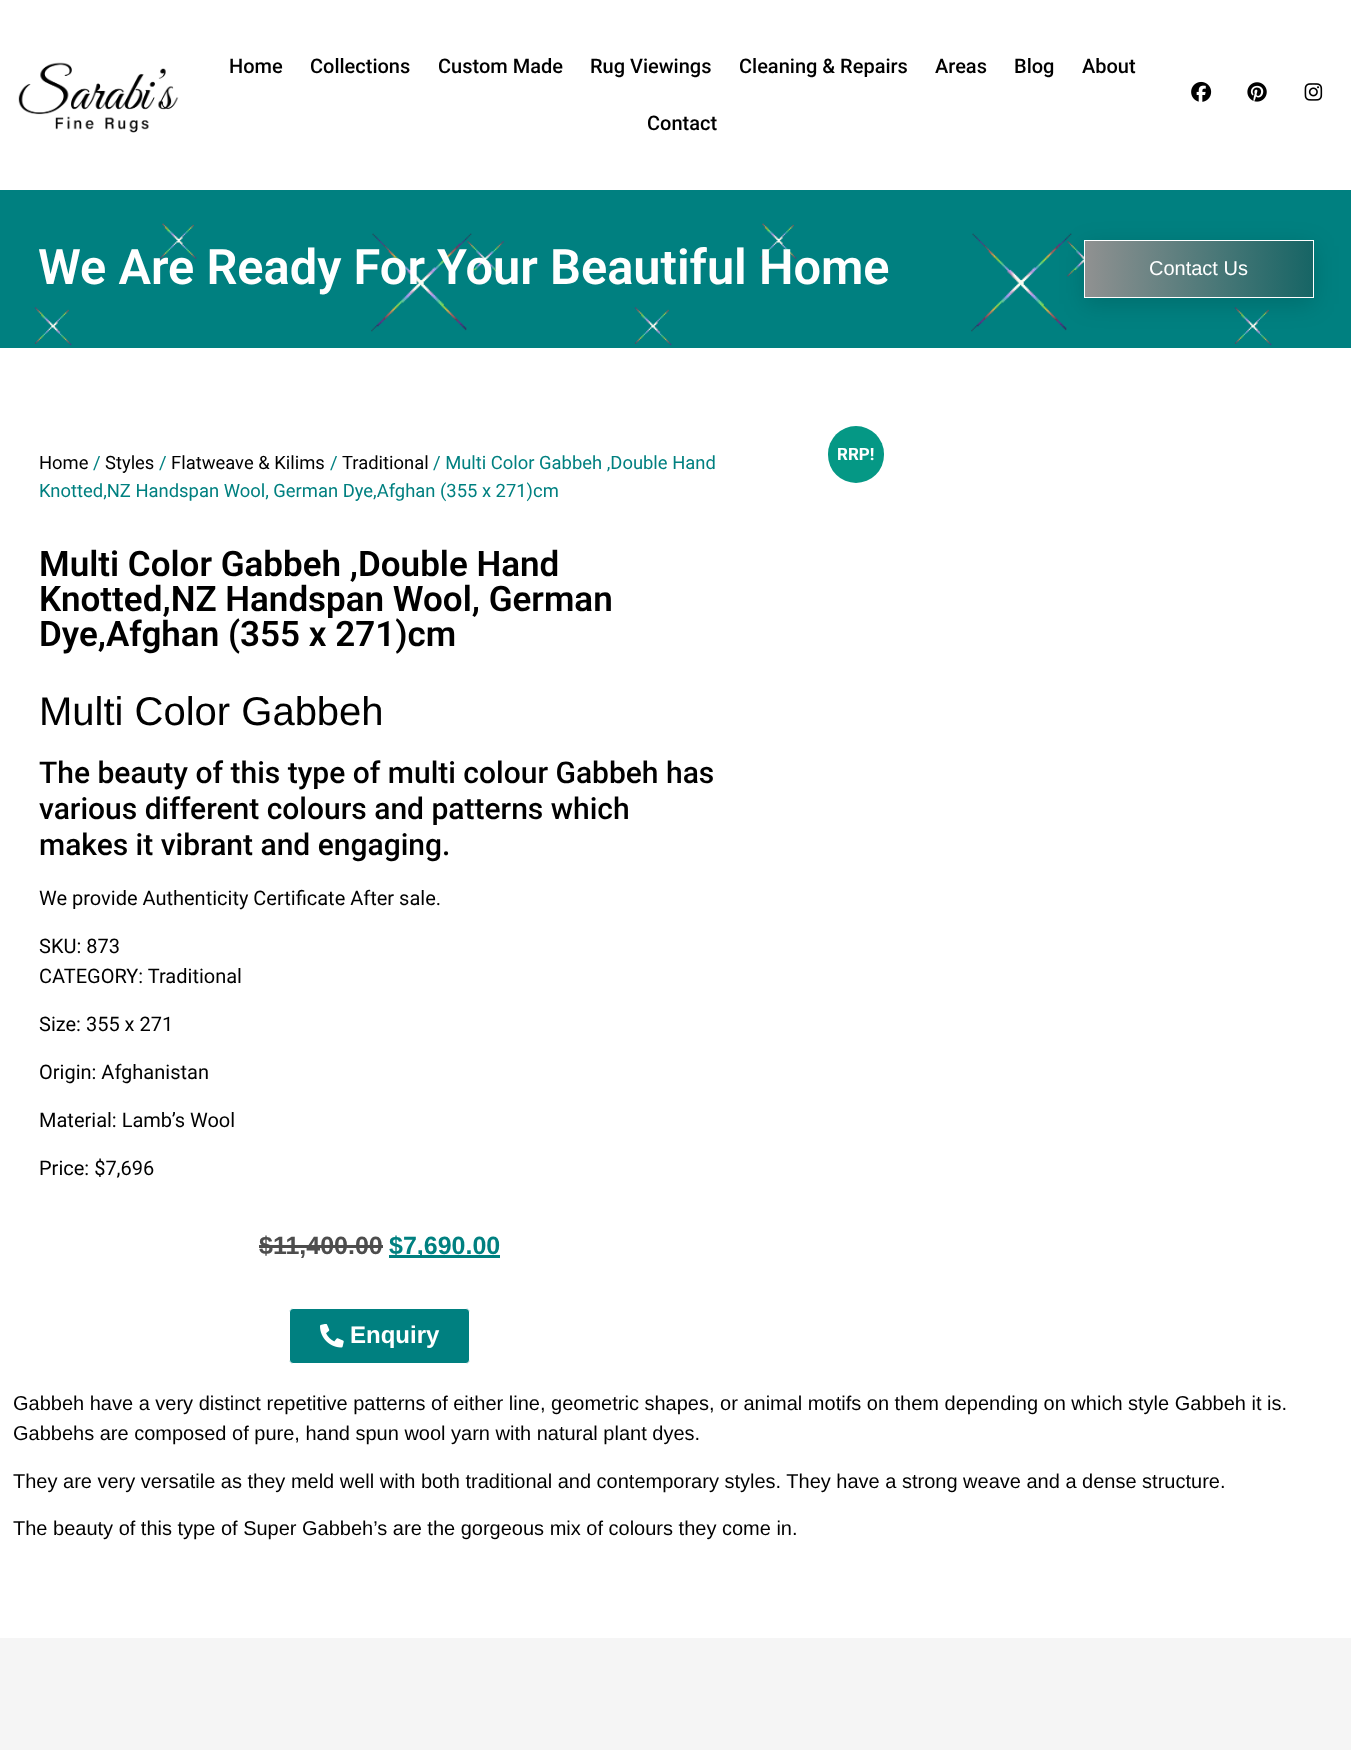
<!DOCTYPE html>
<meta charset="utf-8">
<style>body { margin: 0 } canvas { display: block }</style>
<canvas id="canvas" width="1351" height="1750"></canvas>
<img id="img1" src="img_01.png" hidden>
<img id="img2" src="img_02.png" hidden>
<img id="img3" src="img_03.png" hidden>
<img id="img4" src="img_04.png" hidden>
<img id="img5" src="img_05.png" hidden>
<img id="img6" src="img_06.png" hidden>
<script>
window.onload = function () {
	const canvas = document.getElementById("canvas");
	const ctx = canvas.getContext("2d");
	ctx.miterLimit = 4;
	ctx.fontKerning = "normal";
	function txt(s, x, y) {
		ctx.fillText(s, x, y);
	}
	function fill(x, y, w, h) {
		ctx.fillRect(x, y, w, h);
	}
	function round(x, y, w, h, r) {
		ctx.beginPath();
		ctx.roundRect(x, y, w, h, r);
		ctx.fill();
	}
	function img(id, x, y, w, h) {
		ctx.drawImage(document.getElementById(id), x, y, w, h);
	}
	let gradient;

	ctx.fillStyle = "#FFFFFF";
	fill(0, 0, 1351, 1750);
	img("img1", 18, 62, 161, 71);
	img("img2", 1191, 81, 21, 21);
	img("img3", 1247, 82, 20, 20);
	img("img4", 1304, 83, 19, 18);
	ctx.fillStyle = "#008080";
	fill(0, 190, 1351, 158);
	img("img5", 34, 223, 1238, 123);
	ctx.fillStyle = "rgba(0, 0, 0, 0.15)";
	ctx.filter = "blur(12.5px)";
	ctx.beginPath();
	ctx.rect(1084, 246, 230, 58);
	ctx.fill();
	ctx.filter = "none";
	gradient = ctx.createLinearGradient(1085, 269, 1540, 269);
	gradient.addColorStop(0, "#909191");
	gradient.addColorStop(0.51, "#146464");
	gradient.addColorStop(1, "#024141");
	ctx.fillStyle = gradient;
	fill(1085, 241, 228, 56);
	ctx.strokeStyle = "#FFFFFF";
	ctx.strokeRect(1084.5, 240.5, 229, 57);
	ctx.fillStyle = "#4D4D4D";
	fill(259, 1245, 124, 3);
	ctx.fillStyle = "#008080";
	fill(389, 1255, 111, 3);
	ctx.beginPath();
	ctx.roundRect(289.5, 1308.5, 180, 55, 3.5);
	ctx.fill();
	ctx.stroke();
	img("img6", 320, 1324, 24, 24);
	ctx.fillStyle = "#059885";
	round(828, 426, 56, 57, 28);
	ctx.fillStyle = "#F5F5F5";
	fill(0, 1638, 1351, 112);
	ctx.font = "500 20px Roboto";
	ctx.fillStyle = "#000000";
	txt("Home", 229, 73);
	txt("Collections", 310, 73);
	txt("Custom Made", 438, 73);
	txt("Rug Viewings", 590, 73);
	txt("Cleaning & Repairs", 739, 73);
	txt("Areas", 935, 73);
	txt("Blog", 1014, 73);
	txt("About", 1082, 73);
	txt("Contact", 647, 130);
	ctx.font = "600 48.75px Roboto";
	ctx.fillStyle = "#FFFFFF";
	txt("We Are Ready For Your Beautiful Home", 38, 284);
	ctx.font = "20px Liberation Sans";
	txt("Contact Us", 1149, 275);
	ctx.font = "18.4px Roboto";
	ctx.fillStyle = "#000000";
	txt("Home", 39, 469);
	ctx.fillStyle = "#008080";
	txt("/", 93, 469);
	ctx.fillStyle = "#000000";
	txt("Styles", 105, 469);
	ctx.fillStyle = "#008080";
	txt("/", 159, 469);
	ctx.fillStyle = "#000000";
	txt("Flatweave & Kilims", 171, 469);
	ctx.fillStyle = "#008080";
	txt("/", 330, 469);
	ctx.fillStyle = "#000000";
	txt("Traditional", 342, 469);
	ctx.fillStyle = "#008080";
	txt("/ Multi Color Gabbeh ,Double Hand", 433, 469);
	txt("Knotted,NZ Handspan Wool, German Dye,Afghan (355 x 271)cm", 39, 497);
	ctx.font = "600 35px Roboto";
	ctx.fillStyle = "#000000";
	txt("Multi Color Gabbeh ,Double Hand", 39, 576);
	txt("Knotted,NZ Handspan Wool, German", 39, 611);
	txt("Dye,Afghan (355 x 271)cm", 39, 646);
	ctx.font = "40px Liberation Sans";
	txt("Multi Color Gabbeh", 39, 725);
	ctx.font = "500 30px Roboto";
	txt("The beauty of this type of multi colour Gabbeh has", 39, 783);
	txt("various different colours and patterns which", 39, 819);
	txt("makes it vibrant and engaging.", 39, 855);
	ctx.font = "20px Roboto";
	txt("We provide Authenticity Certificate After sale.", 39, 905);
	txt("SKU: 873", 39, 953);
	txt("CATEGORY: Traditional", 39, 983);
	txt("Size: 355 x 271", 39, 1031);
	txt("Origin: Afghanistan", 39, 1079);
	txt("Material: Lamb’s Wool", 39, 1127);
	txt("Price: $7,696", 39, 1175);
	ctx.font = "bold 25px Liberation Sans";
	ctx.fillStyle = "#4D4D4D";
	txt("$11,400.00", 259, 1254);
	ctx.fillStyle = "#008080";
	txt("$7,690.00", 389, 1254);
	ctx.font = "bold 24px Liberation Sans";
	ctx.fillStyle = "#FFFFFF";
	txt("Enquiry", 350, 1343);
	ctx.font = "bold 17px Roboto";
	txt("RRP!", 837, 460);
	ctx.font = "20px Liberation Sans";
	ctx.fillStyle = "#000000";
	txt("Gabbeh have a very distinct repetitive patterns of either line, geometric shapes, or animal motifs on them depending on which style Gabbeh it is.", 13, 1410);
	txt("Gabbehs are composed of pure, hand spun wool yarn with natural plant dyes.", 13, 1440);
	txt("They are very versatile as they meld well with both traditional and contemporary styles. They have a strong weave and a dense structure.", 13, 1488);
	txt("The beauty of this type of Super Gabbeh’s are the gorgeous mix of colours they come in.", 13, 1535);
};
</script>
